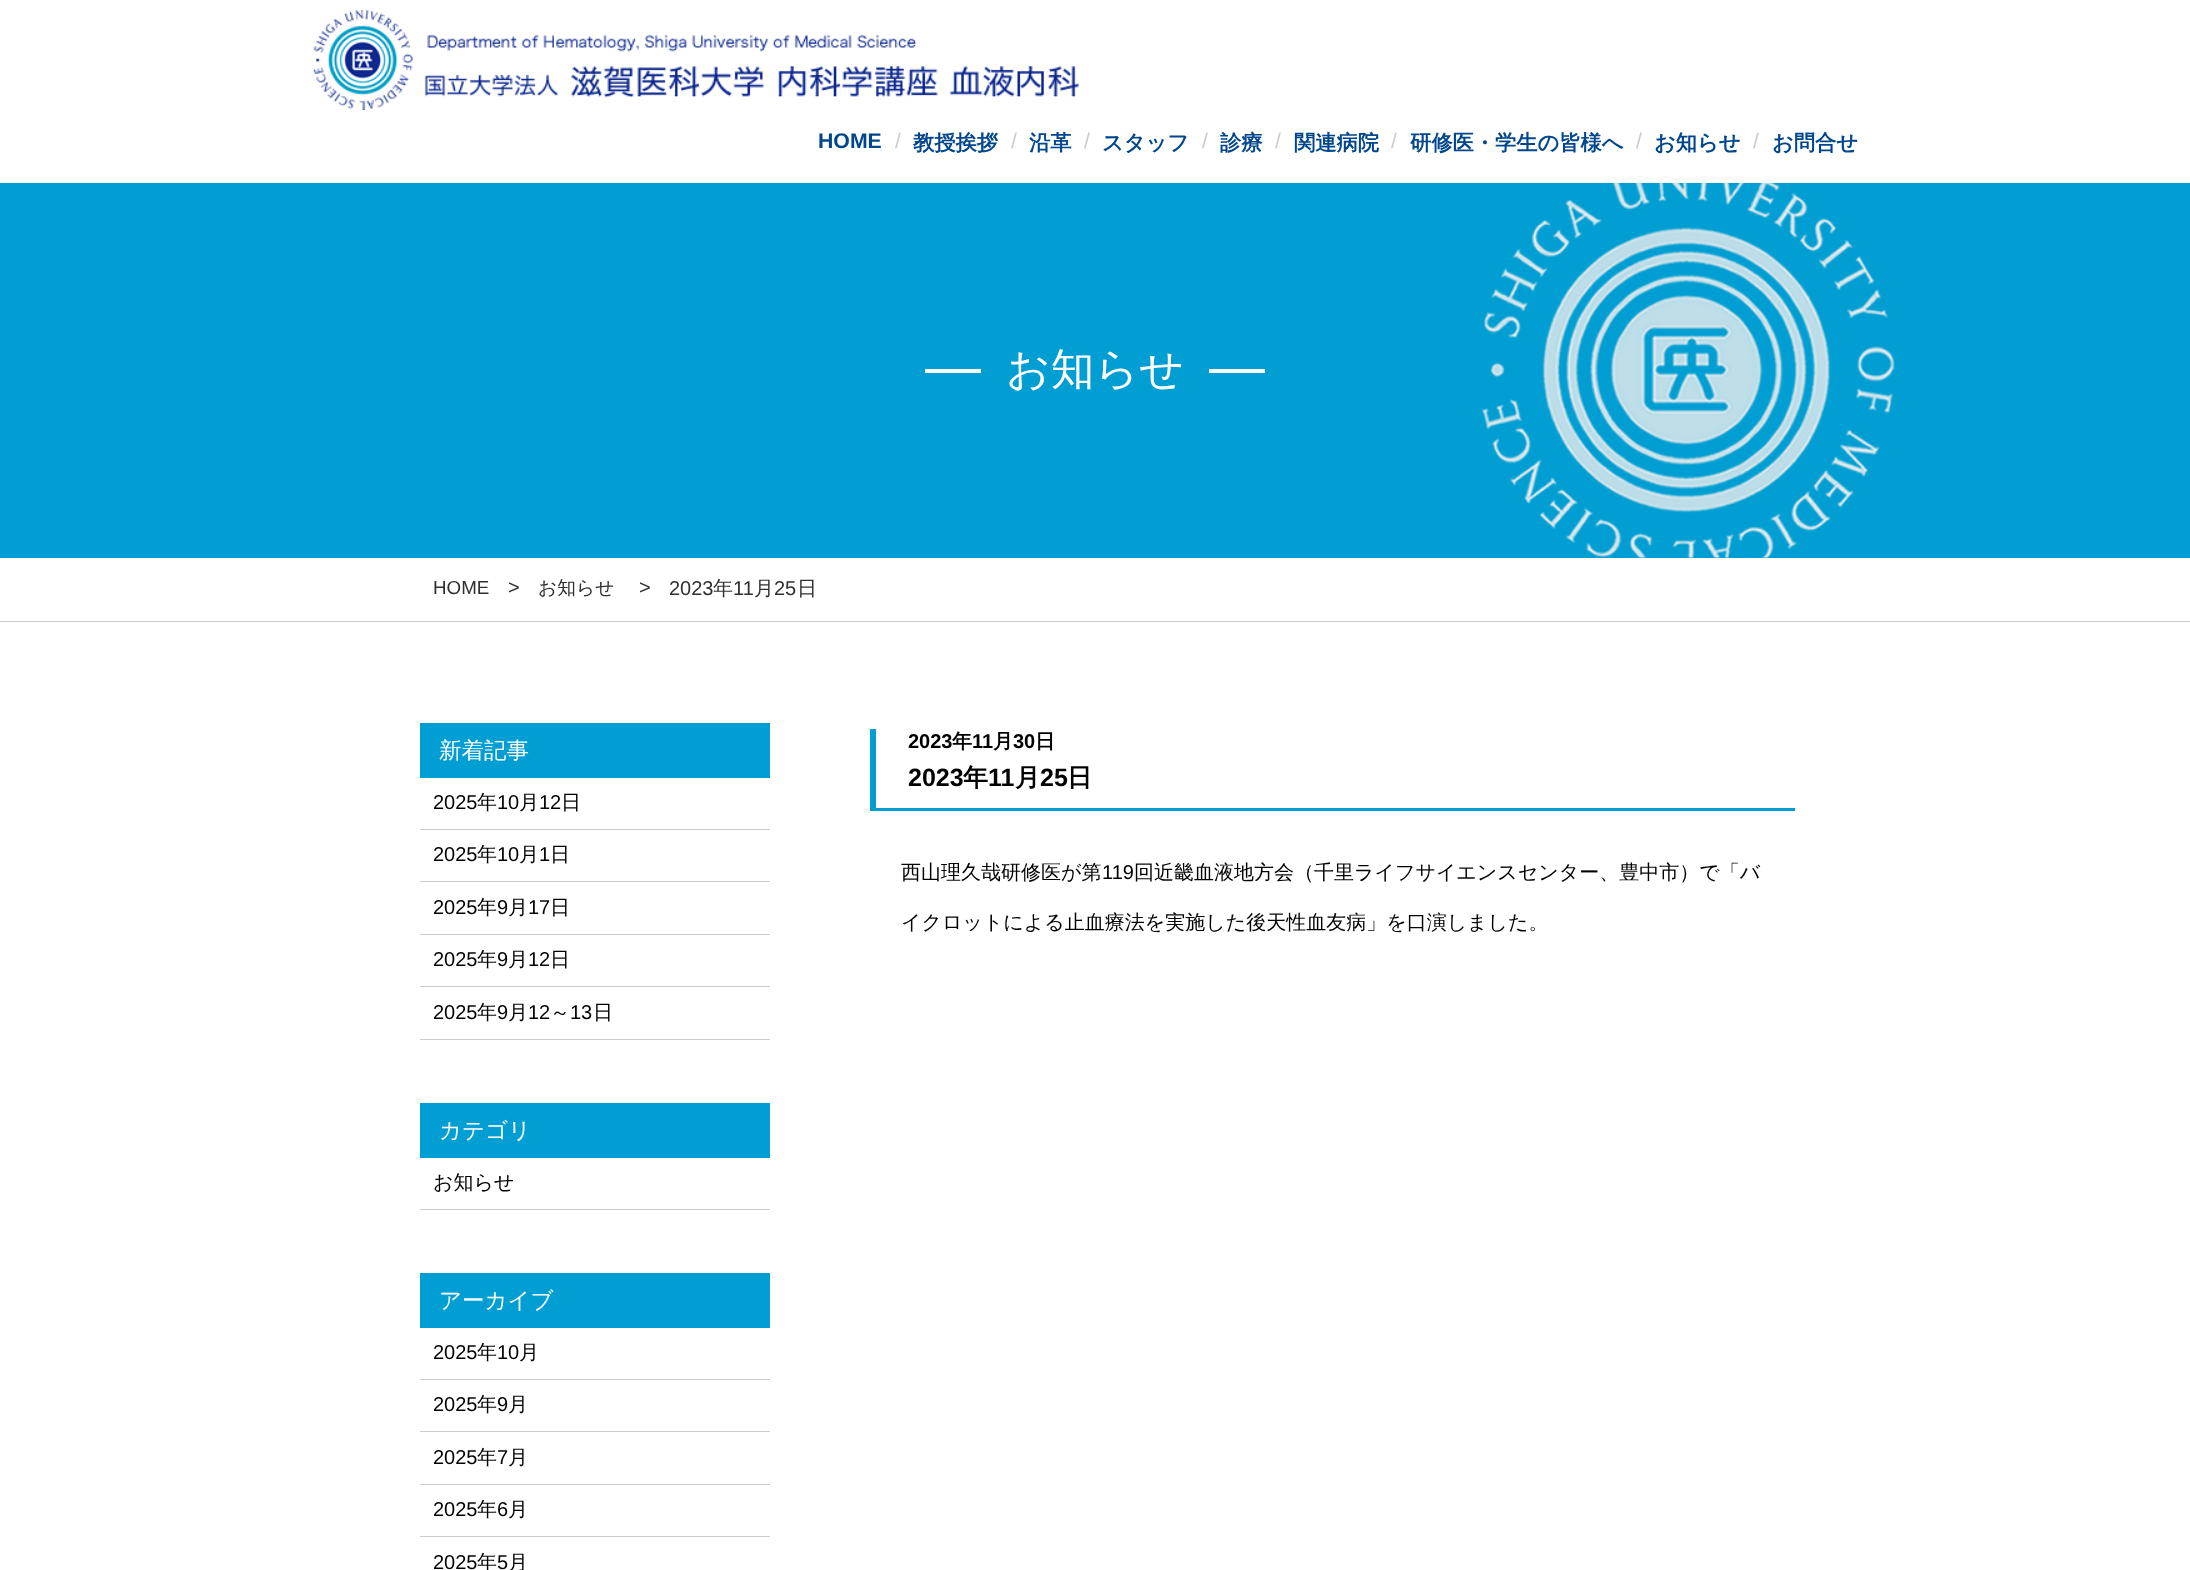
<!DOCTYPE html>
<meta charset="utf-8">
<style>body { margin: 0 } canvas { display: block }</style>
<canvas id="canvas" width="2190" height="1570"></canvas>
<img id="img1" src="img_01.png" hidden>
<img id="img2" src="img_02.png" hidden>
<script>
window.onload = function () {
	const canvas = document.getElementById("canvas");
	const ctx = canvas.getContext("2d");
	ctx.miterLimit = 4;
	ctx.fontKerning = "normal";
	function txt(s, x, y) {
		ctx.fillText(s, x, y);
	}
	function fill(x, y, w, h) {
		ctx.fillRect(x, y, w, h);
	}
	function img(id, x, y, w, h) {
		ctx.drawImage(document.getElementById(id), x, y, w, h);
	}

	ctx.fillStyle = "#FFFFFF";
	fill(0, 0, 2190, 1570);
	img("img1", 313, 10, 766, 100);
	ctx.fillStyle = "#009ED2";
	fill(0, 183, 2190, 375);
	ctx.fillStyle = "#FFFFFF";
	fill(925, 369, 56, 4);
	fill(1209, 369, 56, 4);
	img("img2", 1482, 182, 413, 376);
	ctx.fillStyle = "#CCCCCC";
	fill(0, 621, 2190, 1);
	ctx.fillStyle = "#009ED2";
	fill(420, 723, 350, 55);
	ctx.fillStyle = "#CCCCCC";
	fill(420, 829, 350, 1);
	fill(420, 881, 350, 1);
	fill(420, 934, 350, 1);
	fill(420, 986, 350, 1);
	fill(420, 1039, 350, 1);
	ctx.fillStyle = "#009ED2";
	fill(420, 1103, 350, 55);
	ctx.fillStyle = "#CCCCCC";
	fill(420, 1209, 350, 1);
	ctx.fillStyle = "#009ED2";
	fill(420, 1273, 350, 55);
	ctx.fillStyle = "#CCCCCC";
	fill(420, 1379, 350, 1);
	fill(420, 1431, 350, 1);
	fill(420, 1484, 350, 1);
	fill(420, 1536, 350, 1);
	ctx.fillStyle = "#009ED2";
	fill(870, 808, 925, 3);
	fill(870, 729, 6, 81);
	ctx.font = "bold 21.25px Liberation Sans";
	ctx.fillStyle = "#00468C";
	txt("HOME", 818, 148);
	ctx.font = "21.25px Liberation Sans";
	ctx.fillStyle = "#CCCCCC";
	txt("/", 895, 148);
	ctx.font = "bold 21.25px WenQuanYi Zen Hei";
	ctx.fillStyle = "#00468C";
	txt("教授挨拶", 913, 150);
	ctx.font = "21.25px Liberation Sans";
	ctx.fillStyle = "#CCCCCC";
	txt("/", 1011, 148);
	ctx.font = "bold 21.25px WenQuanYi Zen Hei";
	ctx.fillStyle = "#00468C";
	txt("沿革", 1029, 150);
	ctx.font = "21.25px Liberation Sans";
	ctx.fillStyle = "#CCCCCC";
	txt("/", 1084, 148);
	ctx.font = "bold 21.25px WenQuanYi Zen Hei";
	ctx.fillStyle = "#00468C";
	txt("スタッフ", 1102, 150);
	ctx.font = "21.25px Liberation Sans";
	ctx.fillStyle = "#CCCCCC";
	txt("/", 1202, 148);
	ctx.font = "bold 21.25px WenQuanYi Zen Hei";
	ctx.fillStyle = "#00468C";
	txt("診療", 1220, 150);
	ctx.font = "21.25px Liberation Sans";
	ctx.fillStyle = "#CCCCCC";
	txt("/", 1275, 148);
	ctx.font = "bold 21.25px WenQuanYi Zen Hei";
	ctx.fillStyle = "#00468C";
	txt("関連病院", 1294, 150);
	ctx.font = "21.25px Liberation Sans";
	ctx.fillStyle = "#CCCCCC";
	txt("/", 1391, 148);
	ctx.font = "bold 21.25px WenQuanYi Zen Hei";
	ctx.fillStyle = "#00468C";
	txt("研修医・学生の皆様へ", 1410, 150);
	ctx.font = "21.25px Liberation Sans";
	ctx.fillStyle = "#CCCCCC";
	txt("/", 1636, 148);
	ctx.font = "bold 21.25px WenQuanYi Zen Hei";
	ctx.fillStyle = "#00468C";
	txt("お知らせ", 1654, 150);
	ctx.font = "21.25px Liberation Sans";
	ctx.fillStyle = "#CCCCCC";
	txt("/", 1753, 148);
	ctx.font = "bold 21.25px WenQuanYi Zen Hei";
	ctx.fillStyle = "#00468C";
	txt("お問合せ", 1772, 150);
	ctx.font = "500 43.75px WenQuanYi Zen Hei";
	ctx.fillStyle = "#FFFFFF";
	txt("お知らせ", 1006, 384);
	ctx.font = "18.75px Liberation Sans";
	ctx.fillStyle = "#2F2F2F";
	txt("HOME", 433, 594);
	ctx.font = "20px Liberation Sans";
	txt(">", 508, 594);
	ctx.font = "500 18.75px WenQuanYi Zen Hei";
	txt("お知らせ", 538, 594);
	ctx.font = "20px Liberation Sans";
	txt(">", 639, 594);
	txt("2023", 669, 595);
	ctx.font = "500 20px WenQuanYi Zen Hei";
	txt("年", 713, 595);
	ctx.font = "20px Liberation Sans";
	txt("11", 733, 595);
	ctx.font = "500 20px WenQuanYi Zen Hei";
	txt("月", 754, 595);
	ctx.font = "20px Liberation Sans";
	txt("25", 774, 595);
	ctx.font = "500 20px WenQuanYi Zen Hei";
	txt("日", 797, 595);
	ctx.font = "500 22.5px WenQuanYi Zen Hei";
	ctx.fillStyle = "#FFFFFF";
	txt("新着記事", 439, 758);
	ctx.font = "20px Liberation Sans";
	ctx.fillStyle = "#000000";
	txt("2025", 433, 809);
	ctx.font = "500 20px WenQuanYi Zen Hei";
	txt("年", 477, 809);
	ctx.font = "20px Liberation Sans";
	txt("10", 497, 809);
	ctx.font = "500 20px WenQuanYi Zen Hei";
	txt("月", 519, 809);
	ctx.font = "20px Liberation Sans";
	txt("12", 539, 809);
	ctx.font = "500 20px WenQuanYi Zen Hei";
	txt("日", 561, 809);
	ctx.font = "20px Liberation Sans";
	txt("2025", 433, 861);
	ctx.font = "500 20px WenQuanYi Zen Hei";
	txt("年", 477, 861);
	ctx.font = "20px Liberation Sans";
	txt("10", 497, 861);
	ctx.font = "500 20px WenQuanYi Zen Hei";
	txt("月", 519, 861);
	ctx.font = "20px Liberation Sans";
	txt("1", 539, 861);
	ctx.font = "500 20px WenQuanYi Zen Hei";
	txt("日", 550, 861);
	ctx.font = "20px Liberation Sans";
	txt("2025", 433, 914);
	ctx.font = "500 20px WenQuanYi Zen Hei";
	txt("年", 477, 914);
	ctx.font = "20px Liberation Sans";
	txt("9", 497, 914);
	ctx.font = "500 20px WenQuanYi Zen Hei";
	txt("月", 508, 914);
	ctx.font = "20px Liberation Sans";
	txt("17", 528, 914);
	ctx.font = "500 20px WenQuanYi Zen Hei";
	txt("日", 550, 914);
	ctx.font = "20px Liberation Sans";
	txt("2025", 433, 966);
	ctx.font = "500 20px WenQuanYi Zen Hei";
	txt("年", 477, 966);
	ctx.font = "20px Liberation Sans";
	txt("9", 497, 966);
	ctx.font = "500 20px WenQuanYi Zen Hei";
	txt("月", 508, 966);
	ctx.font = "20px Liberation Sans";
	txt("12", 528, 966);
	ctx.font = "500 20px WenQuanYi Zen Hei";
	txt("日", 550, 966);
	ctx.font = "20px Liberation Sans";
	txt("2025", 433, 1019);
	ctx.font = "500 20px WenQuanYi Zen Hei";
	txt("年", 477, 1019);
	ctx.font = "20px Liberation Sans";
	txt("9", 497, 1019);
	ctx.font = "500 20px WenQuanYi Zen Hei";
	txt("月", 508, 1019);
	ctx.font = "20px Liberation Sans";
	txt("12", 528, 1019);
	ctx.font = "500 20px WenQuanYi Zen Hei";
	txt("～", 550, 1019);
	ctx.font = "20px Liberation Sans";
	txt("13", 570, 1019);
	ctx.font = "500 20px WenQuanYi Zen Hei";
	txt("日", 593, 1019);
	ctx.font = "500 22.5px WenQuanYi Zen Hei";
	ctx.fillStyle = "#FFFFFF";
	txt("カテゴリ", 439, 1138);
	ctx.font = "500 20px WenQuanYi Zen Hei";
	ctx.fillStyle = "#000000";
	txt("お知らせ", 433, 1189);
	ctx.font = "500 22.5px WenQuanYi Zen Hei";
	ctx.fillStyle = "#FFFFFF";
	txt("アーカイブ", 439, 1308);
	ctx.font = "20px Liberation Sans";
	ctx.fillStyle = "#000000";
	txt("2025", 433, 1359);
	ctx.font = "500 20px WenQuanYi Zen Hei";
	txt("年", 477, 1359);
	ctx.font = "20px Liberation Sans";
	txt("10", 497, 1359);
	ctx.font = "500 20px WenQuanYi Zen Hei";
	txt("月", 519, 1359);
	ctx.font = "20px Liberation Sans";
	txt("2025", 433, 1411);
	ctx.font = "500 20px WenQuanYi Zen Hei";
	txt("年", 477, 1411);
	ctx.font = "20px Liberation Sans";
	txt("9", 497, 1411);
	ctx.font = "500 20px WenQuanYi Zen Hei";
	txt("月", 508, 1411);
	ctx.font = "20px Liberation Sans";
	txt("2025", 433, 1464);
	ctx.font = "500 20px WenQuanYi Zen Hei";
	txt("年", 477, 1464);
	ctx.font = "20px Liberation Sans";
	txt("7", 497, 1464);
	ctx.font = "500 20px WenQuanYi Zen Hei";
	txt("月", 508, 1464);
	ctx.font = "20px Liberation Sans";
	txt("2025", 433, 1516);
	ctx.font = "500 20px WenQuanYi Zen Hei";
	txt("年", 477, 1516);
	ctx.font = "20px Liberation Sans";
	txt("6", 497, 1516);
	ctx.font = "500 20px WenQuanYi Zen Hei";
	txt("月", 508, 1516);
	ctx.font = "20px Liberation Sans";
	txt("2025", 433, 1569);
	ctx.font = "500 20px WenQuanYi Zen Hei";
	txt("年", 477, 1569);
	ctx.font = "20px Liberation Sans";
	txt("5", 497, 1569);
	ctx.font = "500 20px WenQuanYi Zen Hei";
	txt("月", 508, 1569);
	ctx.font = "bold 20px Liberation Sans";
	txt("2023", 908, 748);
	ctx.font = "bold 20px WenQuanYi Zen Hei";
	txt("年", 952, 748);
	ctx.font = "bold 20px Liberation Sans";
	txt("11", 972, 748);
	ctx.font = "bold 20px WenQuanYi Zen Hei";
	txt("月", 993, 748);
	ctx.font = "bold 20px Liberation Sans";
	txt("30", 1013, 748);
	ctx.font = "bold 20px WenQuanYi Zen Hei";
	txt("日", 1035, 748);
	ctx.font = "bold 25px Liberation Sans";
	txt("2023", 908, 786);
	ctx.font = "bold 25px WenQuanYi Zen Hei";
	txt("年", 963, 786);
	ctx.font = "bold 25px Liberation Sans";
	txt("11", 988, 786);
	ctx.font = "bold 25px WenQuanYi Zen Hei";
	txt("月", 1015, 786);
	ctx.font = "bold 25px Liberation Sans";
	txt("25", 1040, 786);
	ctx.font = "bold 25px WenQuanYi Zen Hei";
	txt("日", 1067, 786);
	ctx.font = "500 20px WenQuanYi Zen Hei";
	txt("西山理久哉研修医が第", 901, 879);
	ctx.font = "20px Liberation Sans";
	txt("119", 1102, 879);
	ctx.font = "500 20px WenQuanYi Zen Hei";
	txt("回近畿血液地方会（千里ライフサイエンスセンター、豊中市）で「バ", 1134, 879);
	txt("イクロットによる止血療法を実施した後天性血友病」を口演しました。", 901, 929);
};
</script>
